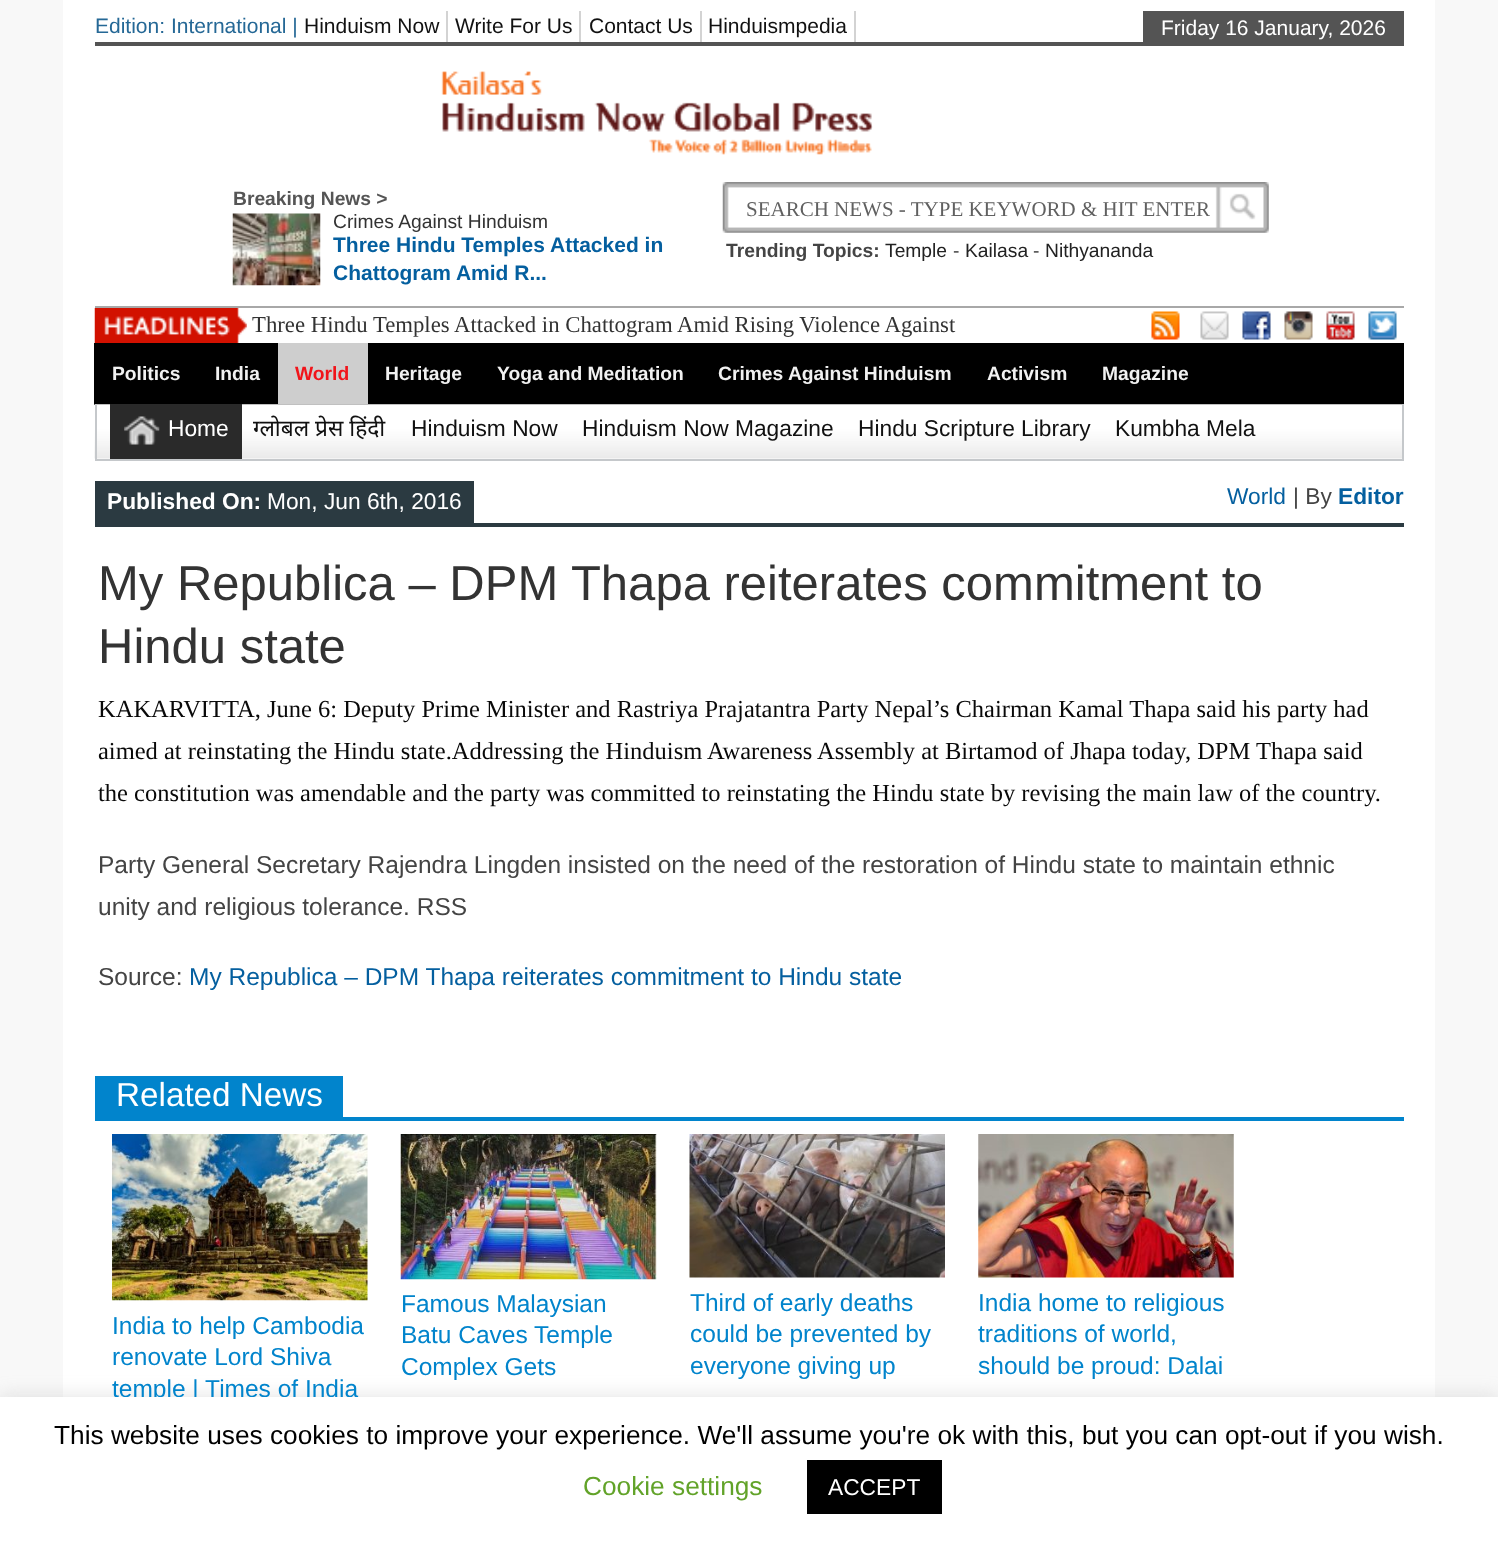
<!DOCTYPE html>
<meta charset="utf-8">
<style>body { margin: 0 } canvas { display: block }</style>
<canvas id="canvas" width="1498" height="1542"></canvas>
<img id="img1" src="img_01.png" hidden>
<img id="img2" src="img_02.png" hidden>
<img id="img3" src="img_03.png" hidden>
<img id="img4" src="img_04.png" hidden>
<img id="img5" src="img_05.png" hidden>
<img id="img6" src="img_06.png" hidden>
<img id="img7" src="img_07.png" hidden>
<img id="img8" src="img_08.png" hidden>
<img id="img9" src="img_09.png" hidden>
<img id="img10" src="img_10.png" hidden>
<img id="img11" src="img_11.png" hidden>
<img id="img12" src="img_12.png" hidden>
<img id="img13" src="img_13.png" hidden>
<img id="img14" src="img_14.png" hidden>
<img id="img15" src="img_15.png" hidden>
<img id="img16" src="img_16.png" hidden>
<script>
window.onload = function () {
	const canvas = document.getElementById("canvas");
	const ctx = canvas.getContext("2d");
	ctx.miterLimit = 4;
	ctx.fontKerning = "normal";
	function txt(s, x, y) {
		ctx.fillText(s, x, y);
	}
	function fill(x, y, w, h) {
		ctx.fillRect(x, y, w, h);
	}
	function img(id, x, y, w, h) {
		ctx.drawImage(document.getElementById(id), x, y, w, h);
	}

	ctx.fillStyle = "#F8F8F8";
	fill(0, 0, 1498, 1542);
	ctx.fillStyle = "#FFFFFF";
	fill(63, 0, 1372, 1397);
	ctx.fillStyle = "#545454";
	fill(95, 42, 1309, 4);
	ctx.fillStyle = "#D3D3D3";
	fill(446, 11, 2, 31);
	fill(579, 11, 2, 31);
	fill(700, 11, 2, 31);
	fill(854, 11, 2, 31);
	ctx.fillStyle = "#545454";
	fill(1143, 11, 261, 31);
	img("img1", 441, 71, 432, 84);
	img("img2", 232, 213, 89, 73);
	img("img3", 722, 182, 547, 51);
	ctx.fillStyle = "#A8A8A8";
	fill(95, 306, 1309, 2);
	img("img4", 94, 308, 153, 35);
	img("img5", 1151, 311, 29, 29);
	img("img6", 1200, 311, 29, 29);
	img("img7", 1242, 311, 29, 29);
	img("img8", 1284, 311, 29, 29);
	img("img9", 1326, 311, 29, 29);
	img("img10", 1368, 311, 29, 29);
	ctx.fillStyle = "#000000";
	fill(94, 343, 1310, 62);
	ctx.fillStyle = "#CECECE";
	fill(278, 343, 90, 61);
	img("img11", 94, 404, 1308, 55);
	ctx.fillStyle = "#C5C8CB";
	fill(1402, 404, 2, 56);
	fill(95, 459, 1309, 2);
	fill(95, 404, 2, 56);
	ctx.fillStyle = "#2A2A2A";
	fill(110, 404, 132, 55);
	img("img12", 124, 416, 36, 29);
	ctx.fillStyle = "#2B3A41";
	fill(95, 523, 1309, 4);
	fill(95, 481, 379, 42);
	ctx.fillStyle = "#0184CC";
	fill(95, 1117, 1309, 4);
	fill(95, 1076, 248, 41);
	img("img13", 112, 1134, 256, 167);
	img("img14", 400, 1134, 257, 146);
	img("img15", 689, 1134, 256, 144);
	img("img16", 978, 1134, 256, 144);
	ctx.fillStyle = "rgba(172, 171, 171, 0.3)";
	ctx.filter = "blur(9px)";
	ctx.beginPath();
	ctx.rect(0, 1395, 1498, 147);
	ctx.fill();
	ctx.filter = "none";
	ctx.font = "21px Liberation Sans";
	ctx.fillStyle = "#256896";
	txt("Edition: International |", 95, 33);
	ctx.fillStyle = "#111111";
	txt("Hinduism Now", 304, 33);
	txt("Write For Us", 455, 33);
	txt("Contact Us", 589, 33);
	txt("Hinduismpedia", 708, 33);
	ctx.fillStyle = "#FFFFFF";
	txt("Friday 16 January, 2026", 1161, 35);
	ctx.font = "bold 19.25px Liberation Sans";
	ctx.fillStyle = "#555555";
	txt("Breaking News >", 233, 205);
	ctx.font = "19.25px Liberation Sans";
	ctx.fillStyle = "#333333";
	txt("Crimes Against Hinduism", 333, 228);
	ctx.font = "bold 21px Liberation Sans";
	ctx.fillStyle = "#045F9F";
	txt("Three Hindu Temples Attacked in", 333, 252);
	txt("Chattogram Amid R...", 333, 280);
	ctx.font = "21px Liberation Serif";
	ctx.fillStyle = "#606060";
	txt("SEARCH NEWS - TYPE KEYWORD & HIT ENTER", 746, 216);
	ctx.font = "bold 19.25px Liberation Sans";
	ctx.fillStyle = "#444444";
	txt("Trending Topics:", 726, 257);
	ctx.font = "19.25px Liberation Sans";
	ctx.fillStyle = "#222222";
	txt("Temple", 885, 257);
	ctx.fillStyle = "#444444";
	txt("-", 953, 257);
	ctx.fillStyle = "#222222";
	txt("Kailasa", 965, 257);
	ctx.fillStyle = "#444444";
	txt("-", 1033, 257);
	ctx.fillStyle = "#222222";
	txt("Nithyananda", 1045, 257);
	ctx.font = "22.75px Liberation Serif";
	ctx.fillStyle = "#333333";
	txt("Three Hindu Temples Attacked in Chattogram Amid Rising Violence Against", 252, 332);
	ctx.font = "bold 19.25px Liberation Sans";
	ctx.fillStyle = "#F1F1F1";
	txt("Politics", 112, 380);
	txt("India", 215, 380);
	ctx.fillStyle = "#F1141A";
	txt("World", 295, 380);
	ctx.fillStyle = "#F1F1F1";
	txt("Heritage", 385, 380);
	txt("Yoga and Meditation", 497, 380);
	txt("Crimes Against Hinduism", 718, 380);
	txt("Activism", 987, 380);
	txt("Magazine", 1102, 380);
	ctx.font = "22.75px Liberation Sans";
	ctx.fillStyle = "#FFFFFF";
	txt("Home", 168, 436);
	ctx.font = "22.75px Noto Sans";
	ctx.fillStyle = "#111111";
	txt("ग्लोबल प्रेस हिंदी", 253, 436);
	ctx.font = "22.75px Liberation Sans";
	txt("Hinduism Now", 411, 436);
	txt("Hinduism Now Magazine", 582, 436);
	txt("Hindu Scripture Library", 858, 436);
	txt("Kumbha Mela", 1115, 436);
	ctx.font = "bold 22.75px Liberation Sans";
	ctx.fillStyle = "#FFFFFF";
	txt("Published On:", 107, 509);
	ctx.font = "22.75px Liberation Sans";
	txt("Mon, Jun 6th, 2016", 267, 509);
	ctx.fillStyle = "#045F9F";
	txt("World", 1227, 504);
	ctx.fillStyle = "#444444";
	txt("| By", 1293, 504);
	ctx.font = "bold 22.75px Liberation Sans";
	ctx.fillStyle = "#045F9F";
	txt("Editor", 1338, 504);
	ctx.font = "49px Liberation Sans";
	ctx.fillStyle = "#333333";
	txt("My Republica – DPM Thapa reiterates commitment to", 98, 600);
	txt("Hindu state", 98, 663);
	ctx.font = "24.5px Liberation Serif";
	ctx.fillStyle = "#090909";
	txt("KAKARVITTA, June 6: Deputy Prime Minister and Rastriya Prajatantra Party Nepal’s Chairman Kamal Thapa said his party had", 98, 717);
	txt("aimed at reinstating the Hindu state.Addressing the Hinduism Awareness Assembly at Birtamod of Jhapa today, DPM Thapa said", 98, 759);
	txt("the constitution was amendable and the party was committed to reinstating the Hindu state by revising the main law of the country.", 98, 801);
	ctx.font = "24.5px Liberation Sans";
	ctx.fillStyle = "#444444";
	txt("Party General Secretary Rajendra Lingden insisted on the need of the restoration of Hindu state to maintain ethnic", 98, 873);
	txt("unity and religious tolerance. RSS", 98, 915);
	txt("Source:", 98, 985);
	ctx.fillStyle = "#045F9F";
	txt("My Republica – DPM Thapa reiterates commitment to Hindu state", 189, 985);
	ctx.font = "33.25px Liberation Sans";
	ctx.fillStyle = "#FFFFFF";
	txt("Related News", 116, 1106);
	ctx.font = "24.5px Liberation Sans";
	ctx.fillStyle = "#0184CC";
	txt("India to help Cambodia", 112, 1334);
	txt("renovate Lord Shiva", 112, 1365);
	txt("temple | Times of India", 112, 1397);
	txt("Famous Malaysian", 401, 1312);
	txt("Batu Caves Temple", 401, 1343);
	txt("Complex Gets", 401, 1375);
	txt("Third of early deaths", 690, 1311);
	txt("could be prevented by", 690, 1342);
	txt("everyone giving up", 690, 1374);
	txt("India home to religious", 978, 1311);
	txt("traditions of world,", 978, 1342);
	txt("should be proud: Dalai", 978, 1374);
	ctx.fillStyle = "#FFFFFF";
	fill(0, 1397, 1498, 145);
	ctx.font = "26.25px Liberation Sans";
	ctx.fillStyle = "#000000";
	txt("This website uses cookies to improve your experience. We'll assume you're ok with this, but you can opt-out if you wish.", 54, 1444);
	ctx.fillStyle = "#62A329";
	txt("Cookie settings", 583, 1495);
	ctx.fillStyle = "#000000";
	fill(807, 1460, 135, 54);
	ctx.font = "22.75px Liberation Sans";
	ctx.fillStyle = "#FFFFFF";
	txt("ACCEPT", 828, 1495);
};
</script>
